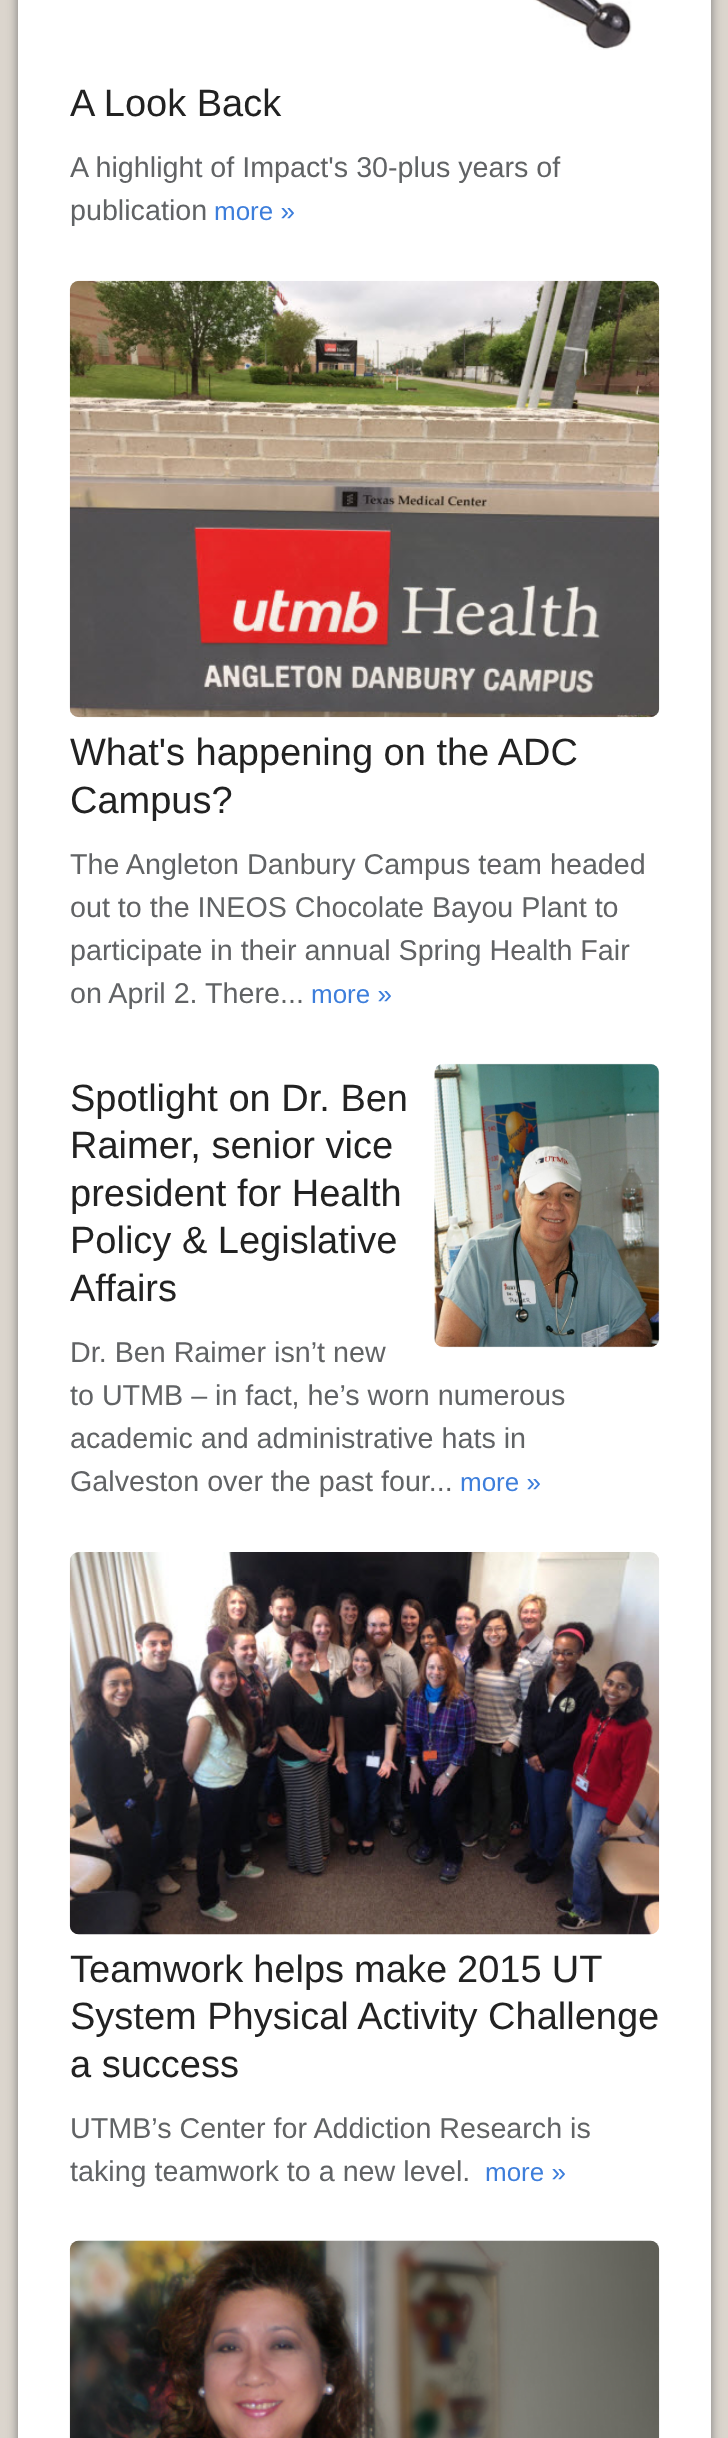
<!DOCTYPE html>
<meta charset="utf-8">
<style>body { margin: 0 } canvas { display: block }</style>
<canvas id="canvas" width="728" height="2438"></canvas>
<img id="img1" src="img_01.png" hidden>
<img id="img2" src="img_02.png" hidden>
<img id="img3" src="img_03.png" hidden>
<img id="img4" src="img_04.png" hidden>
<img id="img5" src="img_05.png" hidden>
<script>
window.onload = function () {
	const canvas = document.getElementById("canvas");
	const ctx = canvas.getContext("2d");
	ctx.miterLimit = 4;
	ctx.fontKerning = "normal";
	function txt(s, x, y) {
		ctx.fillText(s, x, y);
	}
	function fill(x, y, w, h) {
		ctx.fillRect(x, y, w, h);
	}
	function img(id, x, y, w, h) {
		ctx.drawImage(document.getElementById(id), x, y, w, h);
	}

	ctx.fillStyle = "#DBD5CD";
	fill(0, 0, 728, 2438);
	ctx.fillStyle = "#777777";
	ctx.filter = "blur(5.5px)";
	ctx.beginPath();
	ctx.roundRect(18, -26, 693, 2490, 9);
	ctx.fill();
	ctx.filter = "none";
	ctx.fillStyle = "#FFFFFF";
	fill(18, 0, 693, 2438);
	img("img1", 533, 0, 99, 50);
	img("img2", 69, 280, 591, 438);
	img("img3", 434, 1063, 226, 285);
	img("img4", 69, 1552, 591, 383);
	img("img5", 69, 2240, 591, 198);
	ctx.font = "38px Liberation Sans";
	ctx.fillStyle = "#222222";
	txt("A Look Back", 70, 116);
	ctx.font = "28.7px Liberation Sans";
	ctx.fillStyle = "#616365";
	txt("A highlight of Impact's 30-plus years of", 70, 177);
	txt("publication", 70, 220);
	ctx.font = "26px Liberation Sans";
	ctx.fillStyle = "#3D7EDB";
	txt("more »", 214, 220);
	ctx.font = "38px Liberation Sans";
	ctx.fillStyle = "#222222";
	txt("What's happening on the ADC", 70, 765);
	txt("Campus?", 70, 813);
	ctx.font = "28.7px Liberation Sans";
	ctx.fillStyle = "#616365";
	txt("The Angleton Danbury Campus team headed", 70, 874);
	txt("out to the INEOS Chocolate Bayou Plant to", 70, 917);
	txt("participate in their annual Spring Health Fair", 70, 960);
	txt("on April 2.", 70, 1003);
	txt("There...", 205, 1003);
	ctx.font = "26px Liberation Sans";
	ctx.fillStyle = "#3D7EDB";
	txt("more »", 311, 1003);
	ctx.font = "38px Liberation Sans";
	ctx.fillStyle = "#222222";
	txt("Spotlight on Dr. Ben", 70, 1111);
	txt("Raimer, senior vice", 70, 1158);
	txt("president for Health", 70, 1206);
	txt("Policy & Legislative", 70, 1253);
	txt("Affairs", 70, 1301);
	ctx.font = "28.7px Liberation Sans";
	ctx.fillStyle = "#616365";
	txt("Dr. Ben Raimer isn’t new", 70, 1362);
	txt("to UTMB – in fact, he’s worn numerous", 70, 1405);
	txt("academic and administrative hats in", 70, 1448);
	txt("Galveston over the past four...", 70, 1491);
	ctx.font = "26px Liberation Sans";
	ctx.fillStyle = "#3D7EDB";
	txt("more »", 460, 1491);
	ctx.wordSpacing = "-0.5px";
	ctx.font = "38px Liberation Sans";
	ctx.fillStyle = "#222222";
	txt("Teamwork helps make 2015 UT", 70, 1982);
	ctx.wordSpacing = "0px";
	txt("System Physical Activity Challenge", 70, 2029);
	txt("a success", 70, 2077);
	ctx.font = "28.7px Liberation Sans";
	ctx.fillStyle = "#616365";
	txt("UTMB’s Center for Addiction Research is", 70, 2138);
	txt("taking teamwork to a new level.", 70, 2181);
	ctx.font = "26px Liberation Sans";
	ctx.fillStyle = "#3D7EDB";
	txt("more »", 485, 2181);
};
</script>
